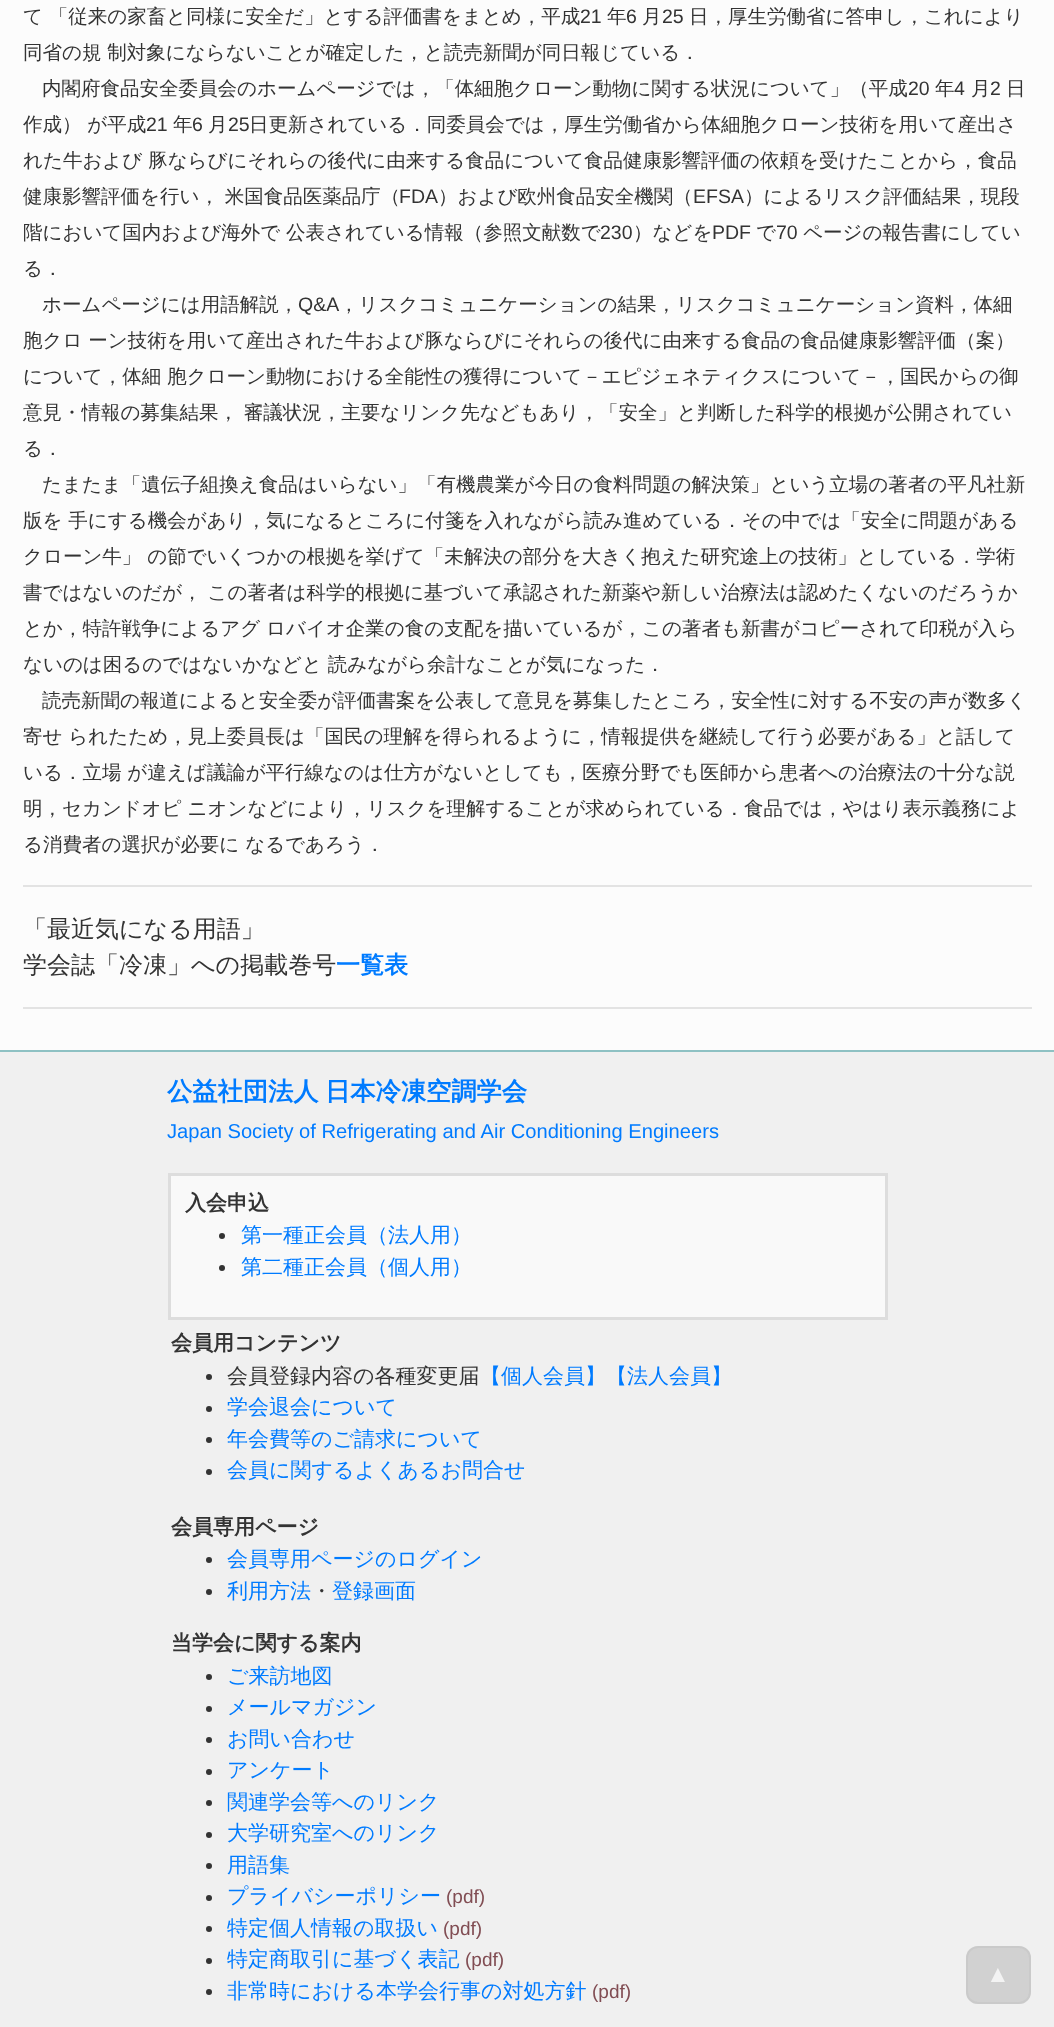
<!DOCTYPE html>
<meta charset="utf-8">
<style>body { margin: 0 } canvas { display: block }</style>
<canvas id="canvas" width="1054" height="2027"></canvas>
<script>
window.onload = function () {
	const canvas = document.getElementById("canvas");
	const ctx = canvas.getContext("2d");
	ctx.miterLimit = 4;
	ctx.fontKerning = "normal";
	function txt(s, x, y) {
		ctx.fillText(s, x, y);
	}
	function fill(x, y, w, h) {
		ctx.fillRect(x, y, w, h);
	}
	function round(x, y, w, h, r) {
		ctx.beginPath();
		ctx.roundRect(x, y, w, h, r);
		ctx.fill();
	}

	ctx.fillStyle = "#FCFCFC";
	fill(0, 0, 1054, 2027);
	ctx.fillStyle = "#E3E3E3";
	fill(23, 885, 1009, 2);
	fill(23, 1007, 1009, 2);
	ctx.fillStyle = "#F0F0F0";
	fill(0, 1052, 1054, 975);
	ctx.fillStyle = "#8EC1C3";
	fill(0, 1050, 1054, 2);
	ctx.fillStyle = "#F9F9F9";
	ctx.beginPath();
	ctx.rect(169.5, 1174.5, 717, 144);
	ctx.fill();
	ctx.strokeStyle = "#DDDDDD";
	ctx.lineWidth = 3;
	ctx.stroke();
	ctx.fillStyle = "#333333";
	ctx.beginPath();
	ctx.arc(222, 1236, 3, 0, Math.PI * 2);
	ctx.fill();
	ctx.beginPath();
	ctx.arc(222, 1268, 3, 0, Math.PI * 2);
	ctx.fill();
	ctx.beginPath();
	ctx.arc(209, 1377, 3, 0, Math.PI * 2);
	ctx.fill();
	ctx.beginPath();
	ctx.arc(209, 1409, 3, 0, Math.PI * 2);
	ctx.fill();
	ctx.beginPath();
	ctx.arc(209, 1440, 3, 0, Math.PI * 2);
	ctx.fill();
	ctx.beginPath();
	ctx.arc(209, 1472, 3, 0, Math.PI * 2);
	ctx.fill();
	ctx.beginPath();
	ctx.arc(209, 1560, 3, 0, Math.PI * 2);
	ctx.fill();
	ctx.beginPath();
	ctx.arc(209, 1592, 3, 0, Math.PI * 2);
	ctx.fill();
	ctx.beginPath();
	ctx.arc(209, 1677, 3, 0, Math.PI * 2);
	ctx.fill();
	ctx.beginPath();
	ctx.arc(209, 1709, 3, 0, Math.PI * 2);
	ctx.fill();
	ctx.beginPath();
	ctx.arc(209, 1740, 3, 0, Math.PI * 2);
	ctx.fill();
	ctx.beginPath();
	ctx.arc(209, 1772, 3, 0, Math.PI * 2);
	ctx.fill();
	ctx.beginPath();
	ctx.arc(209, 1803, 3, 0, Math.PI * 2);
	ctx.fill();
	ctx.beginPath();
	ctx.arc(209, 1835, 3, 0, Math.PI * 2);
	ctx.fill();
	ctx.beginPath();
	ctx.arc(209, 1866, 3, 0, Math.PI * 2);
	ctx.fill();
	ctx.beginPath();
	ctx.arc(209, 1898, 3, 0, Math.PI * 2);
	ctx.fill();
	ctx.beginPath();
	ctx.arc(209, 1929, 3, 0, Math.PI * 2);
	ctx.fill();
	ctx.beginPath();
	ctx.arc(209, 1961, 3, 0, Math.PI * 2);
	ctx.fill();
	ctx.beginPath();
	ctx.arc(209, 1992, 3, 0, Math.PI * 2);
	ctx.fill();
	ctx.fillStyle = "#D1D1D1";
	round(966, 1946, 65, 58, 12);
	ctx.beginPath();
	ctx.roundRect(967, 1947, 63, 56, 11);
	ctx.strokeStyle = "rgba(192, 192, 192, 0.4)";
	ctx.lineWidth = 2;
	ctx.stroke();
	ctx.font = "500 19.5px WenQuanYi Zen Hei";
	ctx.fillStyle = "#333333";
	txt("て 「従来の家畜と同様に安全だ」とする評価書をまとめ，平成", 23, 23);
	ctx.font = "19.5px Liberation Sans";
	txt("21", 580, 23);
	ctx.font = "500 19.5px WenQuanYi Zen Hei";
	txt("年", 607, 23);
	ctx.font = "19.5px Liberation Sans";
	txt("6", 626, 23);
	ctx.font = "500 19.5px WenQuanYi Zen Hei";
	txt("月", 642, 23);
	ctx.font = "19.5px Liberation Sans";
	txt("25", 662, 23);
	ctx.font = "500 19.5px WenQuanYi Zen Hei";
	txt("日，厚生労働省に答申し，これにより", 689, 23);
	txt("同省の規 制対象にならないことが確定した，と読売新聞が同日報じている．", 23, 59);
	txt("内閣府食品安全委員会のホームページでは，「体細胞クローン動物に関する状況について」（平成", 42, 95);
	ctx.font = "19.5px Liberation Sans";
	txt("20", 908, 95);
	ctx.font = "500 19.5px WenQuanYi Zen Hei";
	txt("年", 935, 95);
	ctx.font = "19.5px Liberation Sans";
	txt("4", 954, 95);
	ctx.font = "500 19.5px WenQuanYi Zen Hei";
	txt("月", 971, 95);
	ctx.font = "19.5px Liberation Sans";
	txt("2", 990, 95);
	ctx.font = "500 19.5px WenQuanYi Zen Hei";
	txt("日", 1006, 95);
	txt("作成） が平成", 23, 131);
	ctx.font = "19.5px Liberation Sans";
	txt("21", 146, 131);
	ctx.font = "500 19.5px WenQuanYi Zen Hei";
	txt("年", 173, 131);
	ctx.font = "19.5px Liberation Sans";
	txt("6", 192, 131);
	ctx.font = "500 19.5px WenQuanYi Zen Hei";
	txt("月", 208, 131);
	ctx.font = "19.5px Liberation Sans";
	txt("25", 228, 131);
	ctx.font = "500 19.5px WenQuanYi Zen Hei";
	txt("日更新されている．同委員会では，厚生労働省から体細胞クローン技術を用いて産出さ", 249, 131);
	txt("れた牛および 豚ならびにそれらの後代に由来する食品について食品健康影響評価の依頼を受けたことから，食品", 23, 167);
	txt("健康影響評価を行い， 米国食品医薬品庁（", 23, 203);
	ctx.font = "19.5px Liberation Sans";
	txt("FDA", 399, 203);
	ctx.font = "500 19.5px WenQuanYi Zen Hei";
	txt("）および欧州食品安全機関（", 438, 203);
	ctx.font = "19.5px Liberation Sans";
	txt("EFSA", 693, 203);
	ctx.font = "500 19.5px WenQuanYi Zen Hei";
	txt("）によるリスク評価結果，現段", 744, 203);
	txt("階において国内および海外で 公表されている情報（参照文献数で", 23, 239);
	ctx.font = "19.5px Liberation Sans";
	txt("230", 600, 239);
	ctx.font = "500 19.5px WenQuanYi Zen Hei";
	txt("）などを", 633, 239);
	ctx.font = "19.5px Liberation Sans";
	txt("PDF", 712, 239);
	ctx.font = "500 19.5px WenQuanYi Zen Hei";
	txt("で", 756, 239);
	ctx.font = "19.5px Liberation Sans";
	txt("70", 776, 239);
	ctx.font = "500 19.5px WenQuanYi Zen Hei";
	txt("ページの報告書にしてい", 803, 239);
	txt("る．", 23, 275);
	txt("ホームページには用語解説，", 42, 311);
	ctx.font = "19.5px Liberation Sans";
	txt("Q&A", 298, 311);
	ctx.font = "500 19.5px WenQuanYi Zen Hei";
	txt("，リスクコミュニケーションの結果，リスクコミュニケーション資料，体細", 339, 311);
	txt("胞クロ ーン技術を用いて産出された牛および豚ならびにそれらの後代に由来する食品の食品健康影響評価（案）", 23, 347);
	txt("について，体細 胞クローン動物における全能性の獲得について－エピジェネティクスについて－，国民からの御", 23, 383);
	txt("意見・情報の募集結果， 審議状況，主要なリンク先などもあり，「安全」と判断した科学的根拠が公開されてい", 23, 419);
	txt("る．", 23, 455);
	txt("たまたま「遺伝子組換え食品はいらない」「有機農業が今日の食料問題の解決策」という立場の著者の平凡社新", 42, 491);
	txt("版を 手にする機会があり，気になるところに付箋を入れながら読み進めている．その中では「安全に問題がある", 23, 527);
	txt("クローン牛」 の節でいくつかの根拠を挙げて「未解決の部分を大きく抱えた研究途上の技術」としている．学術", 23, 563);
	txt("書ではないのだが， この著者は科学的根拠に基づいて承認された新薬や新しい治療法は認めたくないのだろうか", 23, 599);
	txt("とか，特許戦争によるアグ ロバイオ企業の食の支配を描いているが，この著者も新書がコピーされて印税が入ら", 23, 635);
	txt("ないのは困るのではないかなどと 読みながら余計なことが気になった．", 23, 671);
	txt("読売新聞の報道によると安全委が評価書案を公表して意見を募集したところ，安全性に対する不安の声が数多く", 42, 707);
	txt("寄せ られたため，見上委員長は「国民の理解を得られるように，情報提供を継続して行う必要がある」と話して", 23, 743);
	txt("いる．立場 が違えば議論が平行線なのは仕方がないとしても，医療分野でも医師から患者への治療法の十分な説", 23, 779);
	txt("明，セカンドオピ ニオンなどにより，リスクを理解することが求められている．食品では，やはり表示義務によ", 23, 815);
	txt("る消費者の選択が必要に なるであろう．", 23, 851);
	ctx.font = "500 24px WenQuanYi Zen Hei";
	txt("「最近気になる用語」", 23, 937);
	txt("学会誌「冷凍」への掲載巻号", 23, 973);
	ctx.font = "bold 24px WenQuanYi Zen Hei";
	ctx.fillStyle = "#007BFF";
	txt("一覧表", 336, 973);
	ctx.wordSpacing = "-1px";
	ctx.font = "bold 25.25px WenQuanYi Zen Hei";
	txt("公益社団法人 日本冷凍空調学会", 167, 1100);
	ctx.wordSpacing = "0px";
	ctx.font = "20.15px Liberation Sans";
	txt("Japan Society of Refrigerating and Air Conditioning Engineers", 167, 1138);
	ctx.font = "bold 21px WenQuanYi Zen Hei";
	ctx.fillStyle = "#333333";
	txt("入会申込", 185, 1210);
	ctx.font = "500 21px WenQuanYi Zen Hei";
	ctx.fillStyle = "#007BFF";
	txt("第一種正会員（法人用）", 241, 1242);
	txt("第二種正会員（個人用）", 241, 1274);
	ctx.font = "bold 21px WenQuanYi Zen Hei";
	ctx.fillStyle = "#333333";
	txt("会員用コンテンツ", 171, 1350);
	ctx.font = "500 21px WenQuanYi Zen Hei";
	txt("会員登録内容の各種変更届", 227, 1383);
	ctx.fillStyle = "#007BFF";
	txt("【個人会員】【法人会員】", 480, 1383);
	txt("学会退会について", 227, 1414);
	txt("年会費等のご請求について", 227, 1446);
	txt("会員に関するよくあるお問合せ", 227, 1477);
	ctx.font = "bold 21px WenQuanYi Zen Hei";
	ctx.fillStyle = "#333333";
	txt("会員専用ページ", 171, 1534);
	ctx.font = "500 21px WenQuanYi Zen Hei";
	ctx.fillStyle = "#007BFF";
	txt("会員専用ページのログイン", 227, 1566);
	txt("利用方法", 227, 1598);
	ctx.fillStyle = "#333333";
	txt("・", 311, 1598);
	ctx.fillStyle = "#007BFF";
	txt("登録画面", 332, 1598);
	ctx.font = "bold 21px WenQuanYi Zen Hei";
	ctx.fillStyle = "#333333";
	txt("当学会に関する案内", 171, 1650);
	ctx.font = "500 21px WenQuanYi Zen Hei";
	ctx.fillStyle = "#007BFF";
	txt("ご来訪地図", 227, 1683);
	txt("メールマガジン", 227, 1714);
	txt("お問い合わせ", 227, 1746);
	txt("アンケート", 227, 1777);
	txt("関連学会等へのリンク", 227, 1809);
	txt("大学研究室へのリンク", 227, 1840);
	txt("用語集", 227, 1872);
	txt("プライバシーポリシー", 227, 1903);
	ctx.font = "19px Liberation Sans";
	ctx.fillStyle = "#814D53";
	txt("(pdf)", 446, 1903);
	ctx.font = "500 21px WenQuanYi Zen Hei";
	ctx.fillStyle = "#007BFF";
	txt("特定個人情報の取扱い", 227, 1935);
	ctx.font = "19px Liberation Sans";
	ctx.fillStyle = "#814D53";
	txt("(pdf)", 443, 1935);
	ctx.font = "500 21px WenQuanYi Zen Hei";
	ctx.fillStyle = "#007BFF";
	txt("特定商取引に基づく表記", 227, 1966);
	ctx.font = "19px Liberation Sans";
	ctx.fillStyle = "#814D53";
	txt("(pdf)", 465, 1966);
	ctx.font = "500 21px WenQuanYi Zen Hei";
	ctx.fillStyle = "#007BFF";
	txt("非常時における本学会行事の対処方針", 227, 1998);
	ctx.font = "19px Liberation Sans";
	ctx.fillStyle = "#814D53";
	txt("(pdf)", 592, 1998);
	ctx.font = "24px Liberation Sans";
	ctx.fillStyle = "#F3F3F3";
	txt("▲", 986, 1982);
};
</script>
